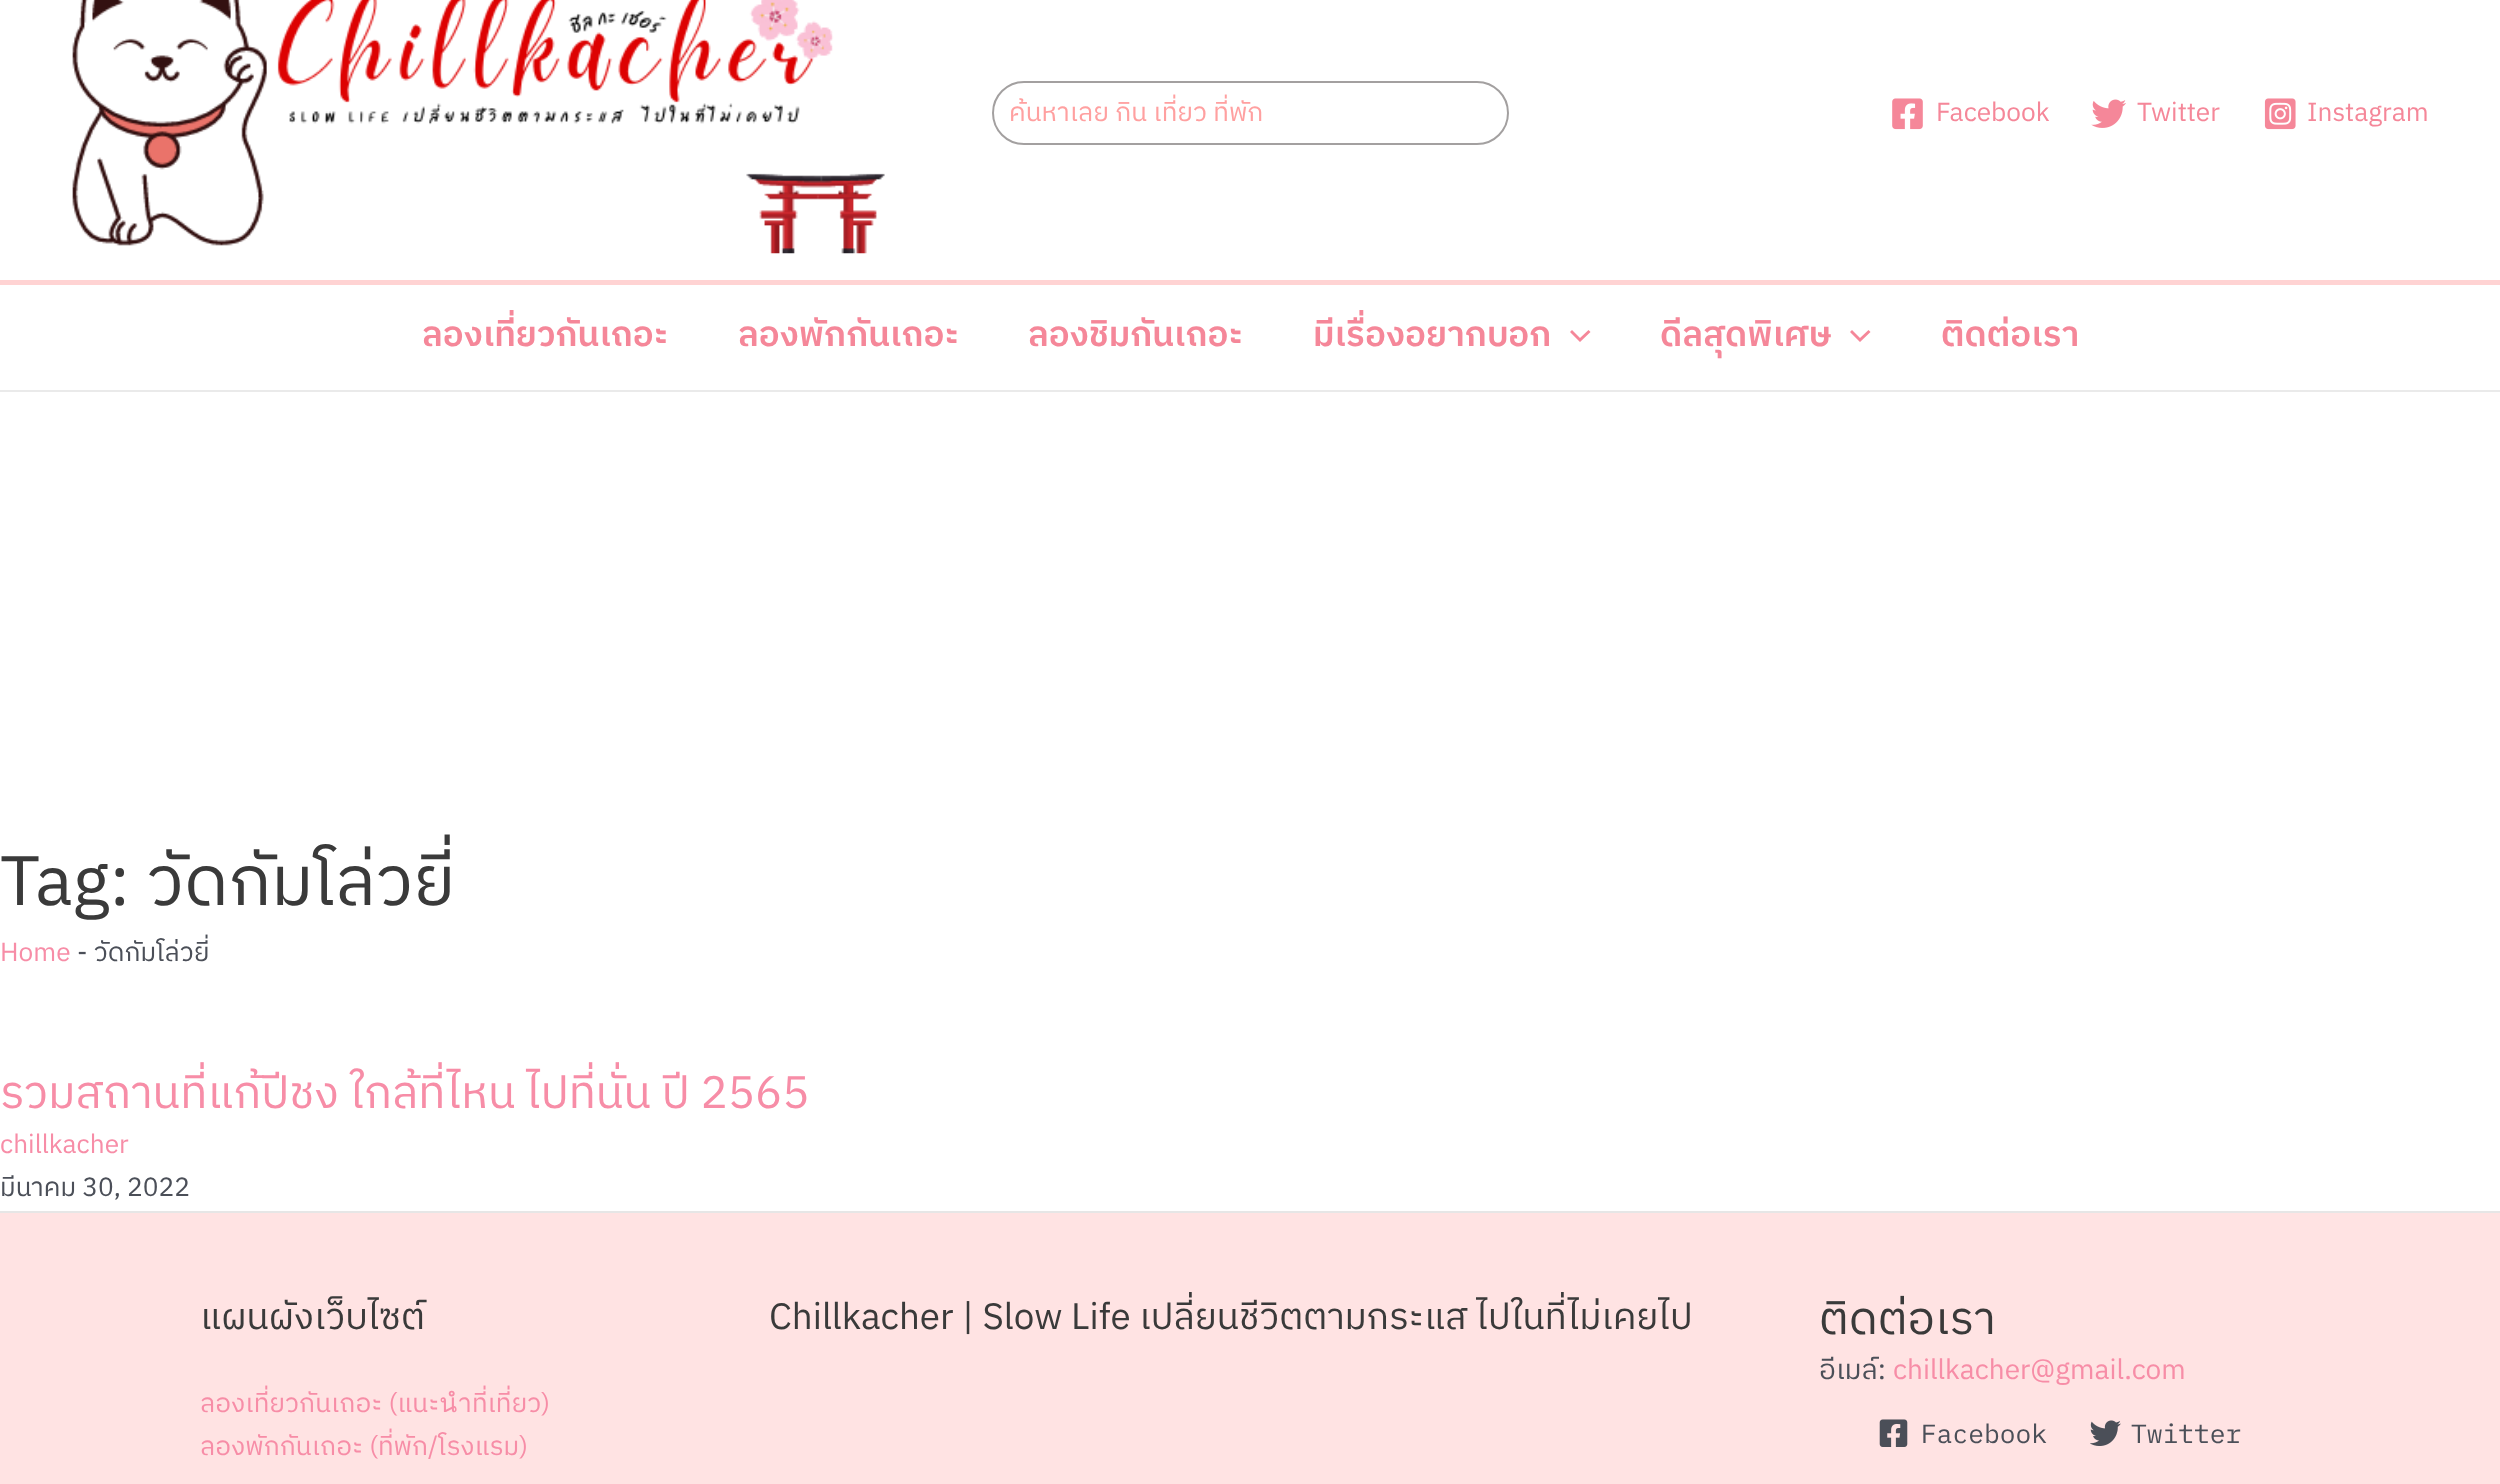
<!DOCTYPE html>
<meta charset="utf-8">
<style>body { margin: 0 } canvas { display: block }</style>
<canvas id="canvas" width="2500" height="1484"></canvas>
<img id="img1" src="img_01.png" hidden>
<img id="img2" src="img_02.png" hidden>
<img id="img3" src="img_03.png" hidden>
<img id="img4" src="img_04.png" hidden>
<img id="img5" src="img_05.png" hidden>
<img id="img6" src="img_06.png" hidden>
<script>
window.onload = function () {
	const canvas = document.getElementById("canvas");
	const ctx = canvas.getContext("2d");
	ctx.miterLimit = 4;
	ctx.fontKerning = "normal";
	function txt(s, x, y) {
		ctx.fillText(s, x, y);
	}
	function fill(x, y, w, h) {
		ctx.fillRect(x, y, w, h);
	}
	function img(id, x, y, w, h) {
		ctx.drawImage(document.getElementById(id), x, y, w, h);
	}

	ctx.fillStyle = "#FFFFFF";
	fill(0, 0, 2500, 1484);
	ctx.fillStyle = "#FFD3D3";
	fill(0, 280, 2500, 5);
	img("img1", 72, 0, 813, 254);
	ctx.beginPath();
	ctx.roundRect(993, 82, 515, 62, 31);
	ctx.strokeStyle = "#A3A0A0";
	ctx.lineWidth = 2;
	ctx.stroke();
	img("img2", 1892, 98, 31, 32);
	img("img3", 2091, 99, 35, 29);
	img("img4", 2264, 98, 32, 32);
	ctx.fillStyle = "#EAEAEA";
	fill(0, 390, 2500, 2);
	ctx.fillStyle = "#F58799";
	ctx.beginPath();
	ctx.moveTo(1570, 332);
	ctx.lineTo(1580, 342);
	ctx.lineTo(1590.5, 332);
	ctx.lineTo(1588.5, 330);
	ctx.lineTo(1580, 338);
	ctx.lineTo(1572, 330);
	ctx.closePath();
	ctx.fill();
	ctx.beginPath();
	ctx.moveTo(1850, 332);
	ctx.lineTo(1860, 342);
	ctx.lineTo(1870.5, 332);
	ctx.lineTo(1868.5, 330);
	ctx.lineTo(1860, 338);
	ctx.lineTo(1852, 330);
	ctx.closePath();
	ctx.fill();
	ctx.fillStyle = "#FFE3E3";
	fill(0, 1213, 2500, 271);
	ctx.fillStyle = "#E6E6E6";
	fill(0, 1211, 2500, 2);
	img("img5", 1879, 1419, 29, 28);
	img("img6", 2090, 1420, 31, 26);
	ctx.save();
	ctx.beginPath();
	ctx.rect(1010, 91, 346, 44);
	ctx.clip();
	ctx.font = "26.25px IBM Plex Sans Thai";
	ctx.fillStyle = "#FFA0A0";
	txt("ค้นหาเลย กิน เที่ยว ที่พัก", 1009, 121);
	ctx.restore();
	ctx.font = "26.25px IBM Plex Sans Thai";
	ctx.fillStyle = "#F58799";
	txt("Facebook", 1936, 121);
	txt("Twitter", 2137, 121);
	txt("Instagram", 2307, 121);
	ctx.font = "600 35px IBM Plex Sans Thai";
	txt("ลองเที่ยวกันเถอะ", 422, 346);
	txt("ลองพักกันเถอะ", 738, 346);
	txt("ลองชิมกันเถอะ", 1028, 346);
	txt("มีเรื่องอยากบอก", 1313, 346);
	txt("ดีลสุดพิเศษ", 1660, 346);
	txt("ติดต่อเรา", 1941, 346);
	ctx.font = "70px IBM Plex Sans Thai";
	ctx.fillStyle = "#3A3A3A";
	txt("Tag: วัดกัมโล่วยี่", 0, 905);
	ctx.font = "26.25px IBM Plex Sans Thai";
	ctx.fillStyle = "#F78DA7";
	txt("Home", 0, 961);
	ctx.fillStyle = "#4B4F58";
	txt("- วัดกัมโล่วยี่", 77, 961);
	ctx.font = "45.5px IBM Plex Sans Thai";
	ctx.fillStyle = "#F78DA7";
	txt("รวมสถานที่แก้ปีชง ใกล้ที่ไหน ไปที่นั่น ปี 2565", 0, 1108);
	ctx.font = "26.25px IBM Plex Sans Thai";
	txt("chillkacher", 0, 1153);
	ctx.fillStyle = "#4B4F58";
	txt("มีนาคม 30, 2022", 0, 1196);
	ctx.font = "36.75px IBM Plex Sans Thai";
	ctx.fillStyle = "#3A3A3A";
	txt("แผนผังเว็บไซต์", 200, 1329);
	ctx.font = "26.25px IBM Plex Sans Thai";
	ctx.fillStyle = "#F78DA7";
	txt("ลองเที่ยวกันเถอะ (แนะนำที่เที่ยว)", 200, 1412);
	txt("ลองพักกันเถอะ (ที่พัก/โรงแรม)", 200, 1455);
	ctx.font = "36.75px IBM Plex Sans Thai";
	ctx.fillStyle = "#3A3A3A";
	txt("Chillkacher | Slow Life เปลี่ยนชีวิตตามกระแส ไปในที่ไม่เคยไป", 769, 1329);
	ctx.font = "45.5px IBM Plex Sans Thai";
	txt("ติดต่อเรา", 1819, 1334);
	ctx.font = "28px IBM Plex Sans Thai";
	ctx.fillStyle = "#4B4F58";
	txt("อีเมล์:", 1819, 1379);
	ctx.fillStyle = "#F78DA7";
	txt("chillkacher@gmail.com", 1893, 1379);
	ctx.font = "26.25px IBM Plex Mono";
	ctx.fillStyle = "#4B4F58";
	txt("Facebook", 1921, 1443);
	txt("Twitter", 2131, 1443);
};
</script>
